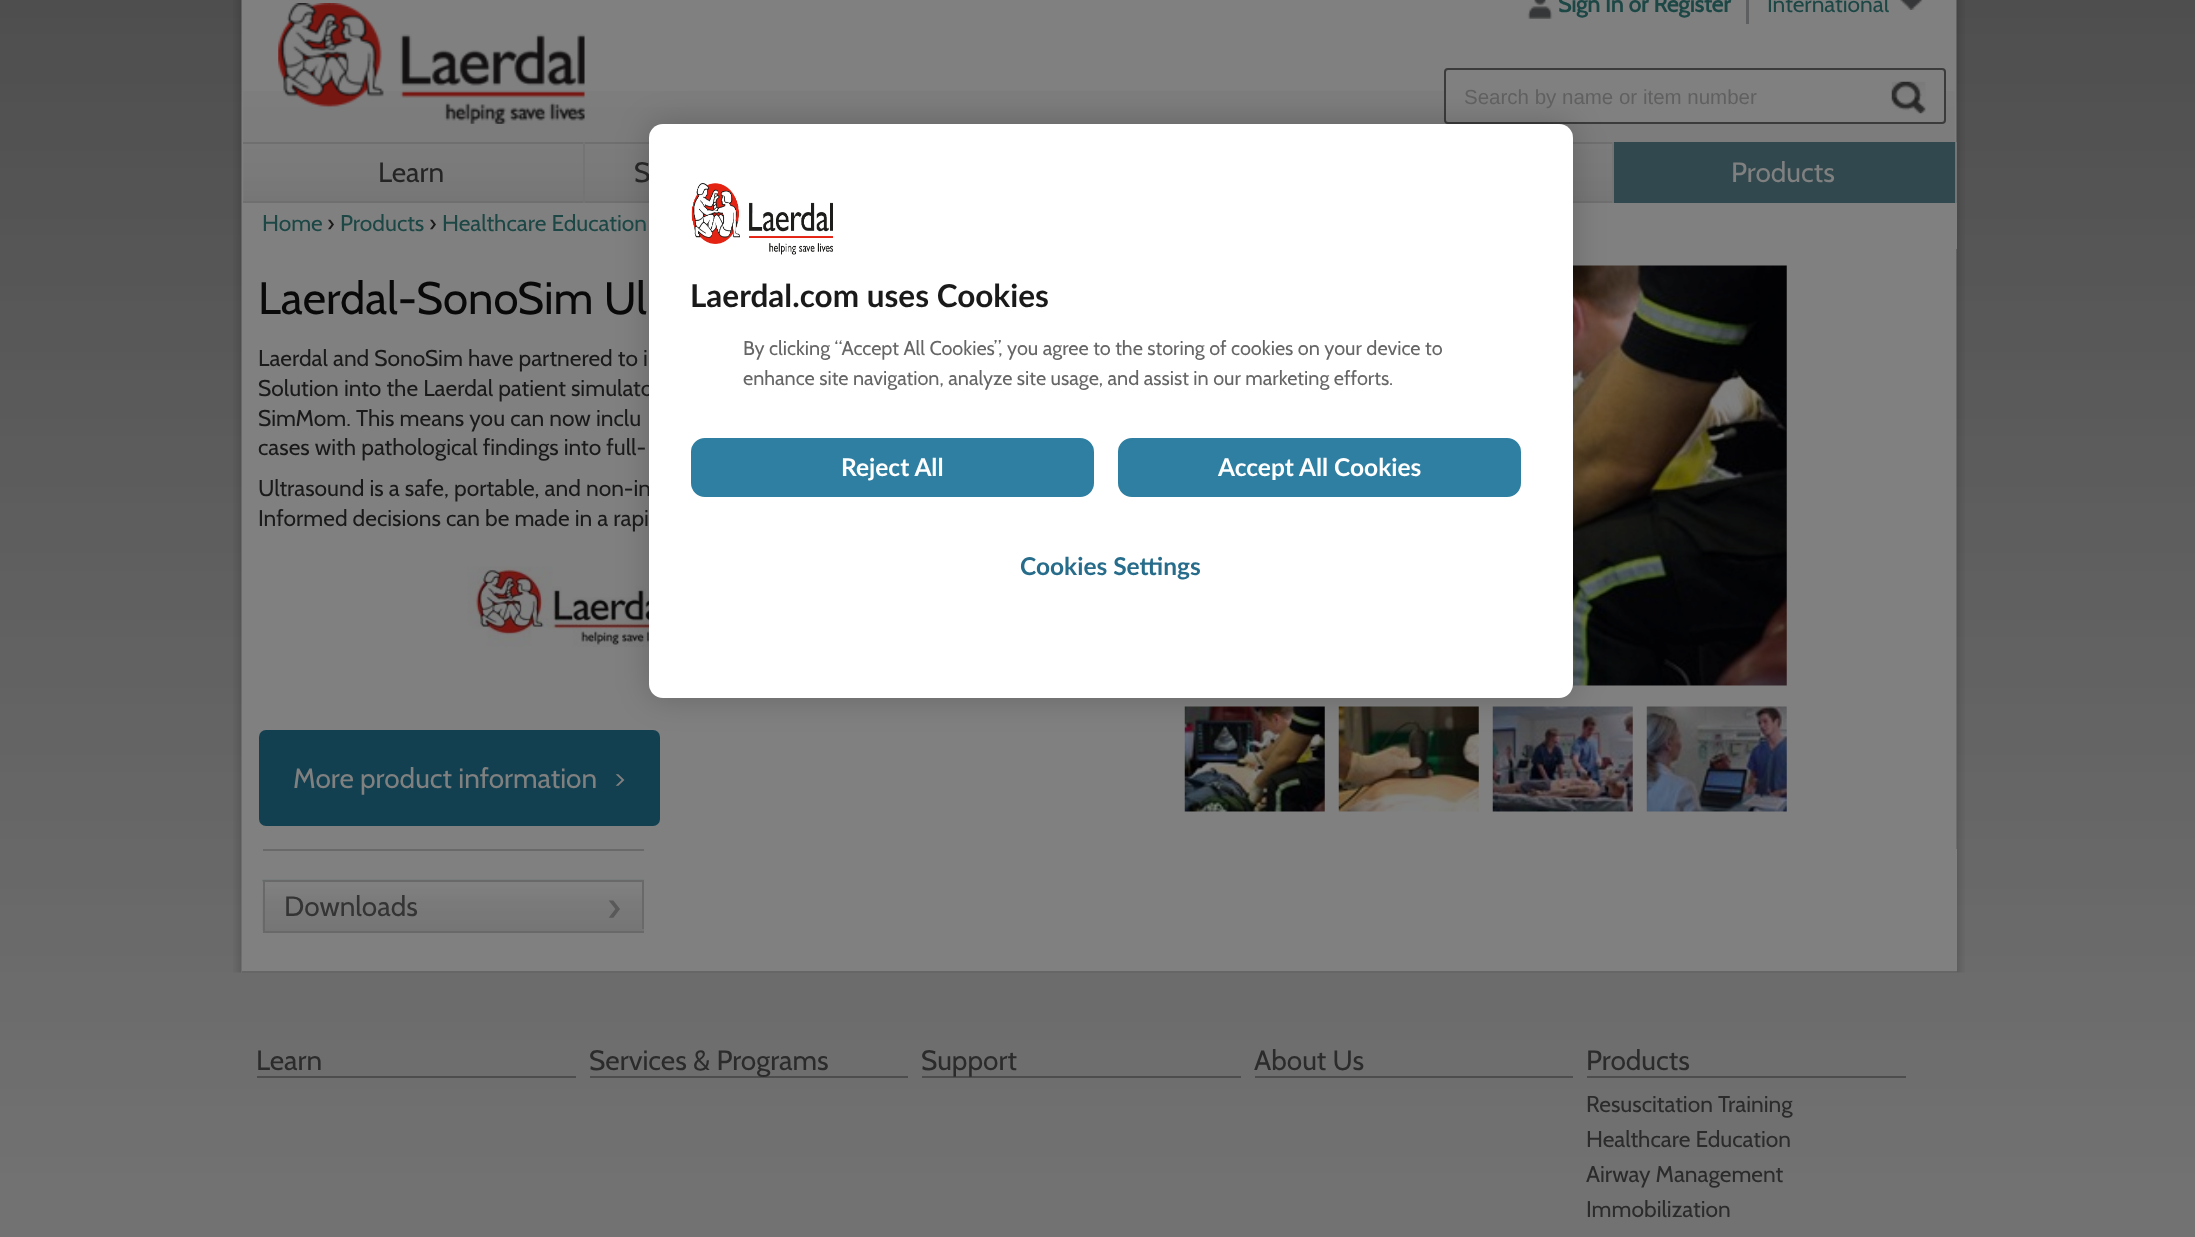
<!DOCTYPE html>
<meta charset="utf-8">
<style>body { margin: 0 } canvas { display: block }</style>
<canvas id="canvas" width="2195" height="1237"></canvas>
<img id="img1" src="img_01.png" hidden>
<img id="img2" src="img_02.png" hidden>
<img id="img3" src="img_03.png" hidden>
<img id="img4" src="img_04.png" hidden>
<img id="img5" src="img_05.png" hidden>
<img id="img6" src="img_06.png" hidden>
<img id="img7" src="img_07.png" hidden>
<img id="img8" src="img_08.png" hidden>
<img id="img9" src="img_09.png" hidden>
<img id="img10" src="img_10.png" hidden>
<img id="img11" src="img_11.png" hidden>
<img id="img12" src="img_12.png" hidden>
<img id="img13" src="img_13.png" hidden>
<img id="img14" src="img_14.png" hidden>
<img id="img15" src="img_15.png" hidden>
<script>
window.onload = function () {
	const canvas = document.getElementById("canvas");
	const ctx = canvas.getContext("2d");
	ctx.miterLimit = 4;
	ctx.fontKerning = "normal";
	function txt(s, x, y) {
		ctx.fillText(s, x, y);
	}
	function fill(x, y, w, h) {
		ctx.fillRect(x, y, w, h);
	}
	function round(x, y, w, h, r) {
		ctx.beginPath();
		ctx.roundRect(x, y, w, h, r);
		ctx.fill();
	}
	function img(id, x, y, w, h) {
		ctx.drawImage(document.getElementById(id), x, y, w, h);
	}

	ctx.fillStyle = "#FFFFFF";
	fill(0, 0, 2195, 1237);
	img("img1", 0, 0, 2195, 1237);
	img("img2", 233, 0, 1732, 973);
	img("img3", 243, 91, 1712, 110);
	ctx.fillStyle = "#6F6F6F";
	fill(243, 201, 1369, 2);
	img("img4", 278, 3, 307, 121);
	img("img5", 1527, 0, 26, 19);
	ctx.fillStyle = "#5E5F60";
	fill(1746, 0, 3, 24);
	img("img6", 1900, 0, 23, 10);
	ctx.fillStyle = "#808080";
	ctx.beginPath();
	ctx.roundRect(1445, 69, 500, 54, 3);
	ctx.fill();
	ctx.strokeStyle = "#3B3B3B";
	ctx.lineWidth = 2;
	ctx.stroke();
	img("img7", 1891, 81, 35, 33);
	ctx.fillStyle = "#6F6F6F";
	fill(243, 142, 1369, 2);
	ctx.fillStyle = "#747474";
	fill(583, 142, 2, 61);
	fill(1612, 142, 2, 61);
	ctx.fillStyle = "#31494E";
	fill(1614, 142, 341, 61);
	ctx.fillStyle = "#747474";
	fill(1955, 142, 2, 61);
	ctx.fillStyle = "#808080";
	fill(1956, 203, 1, 46);
	img("img8", 467, 566, 182, 81);
	ctx.fillStyle = "#134050";
	round(259, 730, 401, 96, 7);
	img("img9", 1572, 265, 215, 421);
	img("img10", 1184, 706, 141, 106);
	img("img11", 1338, 706, 141, 106);
	img("img12", 1492, 706, 141, 106);
	img("img13", 1646, 706, 141, 106);
	ctx.fillStyle = "#808080";
	fill(1956, 849, 1, 122);
	ctx.fillStyle = "#666666";
	fill(242, 971, 1715, 2);
	ctx.fillStyle = "#696969";
	fill(263, 931, 381, 2);
	fill(263, 849, 381, 2);
	img("img14", 262, 879, 382, 52);
	fill(263, 880, 381, 2);
	fill(642, 880, 2, 51);
	ctx.fillStyle = "#757575";
	fill(263, 929, 381, 2);
	ctx.fillStyle = "#696969";
	fill(263, 880, 2, 51);
	ctx.fillStyle = "#4D4D4D";
	fill(257, 1076, 319, 2);
	fill(590, 1076, 318, 2);
	fill(922, 1076, 319, 2);
	fill(1255, 1076, 318, 2);
	fill(1587, 1076, 319, 2);
	ctx.fillStyle = "rgba(0, 0, 0, 0.2)";
	ctx.filter = "blur(16px)";
	ctx.beginPath();
	ctx.roundRect(649, 124, 924, 574, 14);
	ctx.fill();
	ctx.filter = "none";
	ctx.font = "bold 22.75px Cabin";
	ctx.fillStyle = "#1C4745";
	txt("Sign In or Register", 1558, 12);
	ctx.font = "22.75px Cabin";
	txt("International", 1767, 12);
	ctx.font = "20.5px Liberation Sans";
	ctx.fillStyle = "#606060";
	txt("Search by name or item number", 1464, 104);
	ctx.font = "28px Cabin";
	ctx.fillStyle = "#252525";
	txt("Learn", 378, 182);
	txt("S", 634, 182);
	ctx.fillStyle = "#808080";
	txt("Products", 1731, 182);
	ctx.font = "22.75px Cabin";
	ctx.fillStyle = "#1C4745";
	txt("Home", 262, 231);
	ctx.fillStyle = "#1A1A1A";
	txt("›", 327, 231);
	ctx.fillStyle = "#1C4745";
	txt("Products", 340, 231);
	ctx.fillStyle = "#1A1A1A";
	txt("›", 429, 231);
	ctx.fillStyle = "#1C4745";
	txt("Healthcare Education", 442, 231);
	ctx.font = "45.5px Cabin";
	ctx.fillStyle = "#090909";
	txt("Laerdal-SonoSim Ul", 258, 314);
	ctx.font = "22.75px Cabin";
	ctx.fillStyle = "#1A1A1A";
	txt("Laerdal and SonoSim have partnered to i", 258, 366);
	txt("Solution into the Laerdal patient simulato", 258, 396);
	txt("SimMom. This means you can now inclu", 258, 426);
	txt("cases with pathological findings into full-", 258, 455);
	txt("Ultrasound is a safe, portable, and non-in", 258, 496);
	txt("Informed decisions can be made in a rapi", 258, 526);
	ctx.font = "28px Cabin";
	ctx.fillStyle = "#808080";
	txt("More product information", 293, 788);
	txt(">", 614, 788);
	ctx.fillStyle = "#343434";
	txt("Downloads", 284, 916);
	ctx.font = "42px Cabin";
	ctx.fillStyle = "#595959";
	txt("›", 607, 921);
	ctx.font = "28px Cabin";
	ctx.fillStyle = "#2B2B2B";
	txt("Learn", 256, 1070);
	txt("Services & Programs", 589, 1070);
	txt("Support", 921, 1070);
	txt("About Us", 1254, 1070);
	txt("Products", 1586, 1070);
	ctx.font = "22.75px Cabin";
	txt("Resuscitation Training", 1586, 1112);
	txt("Healthcare Education", 1586, 1147);
	txt("Airway Management", 1586, 1182);
	txt("Immobilization", 1586, 1217);
	ctx.fillStyle = "#FFFFFF";
	round(649, 124, 924, 574, 14);
	img("img15", 691, 183, 142, 72);
	ctx.font = "bold 31.5px Lato";
	ctx.fillStyle = "#1A1A1A";
	txt("Laerdal.com uses Cookies", 690, 307);
	ctx.font = "19.9px Cabin";
	ctx.fillStyle = "#666666";
	txt("By clicking “Accept All Cookies”, you agree to the storing of cookies on your device to", 743, 355);
	txt("enhance site navigation, analyze site usage, and assist in our marketing efforts.", 743, 385);
	ctx.fillStyle = "#2E7FA1";
	ctx.beginPath();
	ctx.roundRect(692, 439, 401, 57, 13);
	ctx.fill();
	ctx.strokeStyle = "#2E7FA1";
	ctx.stroke();
	ctx.font = "bold 24.5px Lato";
	ctx.fillStyle = "#FFFFFF";
	txt("Reject All", 841, 476);
	ctx.fillStyle = "#2E7FA1";
	ctx.beginPath();
	ctx.roundRect(1119, 439, 401, 57, 13);
	ctx.fill();
	ctx.stroke();
	ctx.fillStyle = "#FFFFFF";
	txt("Accept All Cookies", 1218, 476);
	ctx.fillStyle = "#276D8B";
	txt("Cookies Settings", 1020, 575);
};
</script>
